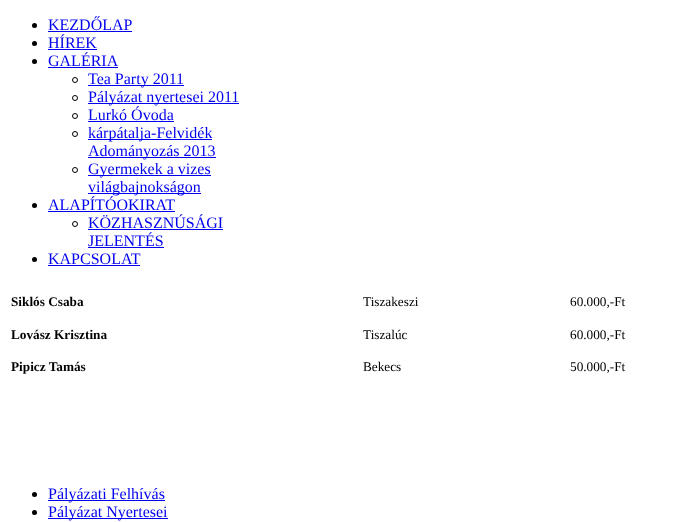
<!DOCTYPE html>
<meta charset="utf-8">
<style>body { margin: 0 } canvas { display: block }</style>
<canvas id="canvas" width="676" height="522"></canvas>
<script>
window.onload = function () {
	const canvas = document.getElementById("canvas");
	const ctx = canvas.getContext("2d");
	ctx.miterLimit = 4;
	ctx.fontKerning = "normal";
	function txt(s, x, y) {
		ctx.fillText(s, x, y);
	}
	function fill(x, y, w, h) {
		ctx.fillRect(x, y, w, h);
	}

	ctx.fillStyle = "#FFFFFF";
	fill(0, 0, 676, 522);
	ctx.fillStyle = "#000000";
	ctx.beginPath();
	ctx.arc(34.5, 25.5, 2.5, 0, Math.PI * 2);
	ctx.fill();
	ctx.fillStyle = "#0000EE";
	fill(48, 31, 84, 1);
	ctx.fillStyle = "#000000";
	ctx.beginPath();
	ctx.arc(34.5, 43.5, 2.5, 0, Math.PI * 2);
	ctx.fill();
	ctx.fillStyle = "#0000EE";
	fill(48, 49, 49, 1);
	ctx.fillStyle = "#000000";
	ctx.beginPath();
	ctx.arc(34.5, 61.5, 2.5, 0, Math.PI * 2);
	ctx.fill();
	ctx.fillStyle = "#0000EE";
	fill(48, 67, 70, 1);
	ctx.beginPath();
	ctx.arc(75, 80, 2.5, 0, Math.PI * 2);
	ctx.strokeStyle = "#000000";
	ctx.stroke();
	fill(88, 85, 96, 1);
	ctx.beginPath();
	ctx.arc(75, 98, 2.5, 0, Math.PI * 2);
	ctx.stroke();
	fill(88, 103, 151, 1);
	ctx.beginPath();
	ctx.arc(75, 116, 2.5, 0, Math.PI * 2);
	ctx.stroke();
	fill(88, 121, 86, 1);
	ctx.beginPath();
	ctx.arc(75, 134, 2.5, 0, Math.PI * 2);
	ctx.stroke();
	fill(88, 139, 124, 1);
	fill(88, 157, 128, 1);
	ctx.beginPath();
	ctx.arc(75, 170, 2.5, 0, Math.PI * 2);
	ctx.stroke();
	fill(88, 175, 123, 1);
	fill(88, 193, 113, 1);
	ctx.fillStyle = "#000000";
	ctx.beginPath();
	ctx.arc(34.5, 205.5, 2.5, 0, Math.PI * 2);
	ctx.fill();
	ctx.fillStyle = "#0000EE";
	fill(48, 211, 127, 1);
	ctx.beginPath();
	ctx.arc(75, 224, 2.5, 0, Math.PI * 2);
	ctx.stroke();
	fill(88, 229, 135, 1);
	fill(88, 247, 76, 1);
	ctx.fillStyle = "#000000";
	ctx.beginPath();
	ctx.arc(34.5, 259.5, 2.5, 0, Math.PI * 2);
	ctx.fill();
	ctx.fillStyle = "#0000EE";
	fill(48, 265, 92, 1);
	ctx.fillStyle = "#000000";
	ctx.beginPath();
	ctx.arc(34.5, 494.5, 2.5, 0, Math.PI * 2);
	ctx.fill();
	ctx.fillStyle = "#0000EE";
	fill(48, 500, 117, 1);
	ctx.fillStyle = "#000000";
	ctx.beginPath();
	ctx.arc(34.5, 512.5, 2.5, 0, Math.PI * 2);
	ctx.fill();
	ctx.fillStyle = "#0000EE";
	fill(48, 518, 120, 1);
	ctx.font = "16px Liberation Serif";
	txt("KEZDŐLAP", 48, 30);
	txt("HÍREK", 48, 48);
	txt("GALÉRIA", 48, 66);
	txt("Tea Party 2011", 88, 84);
	txt("Pályázat nyertesei 2011", 88, 102);
	txt("Lurkó Óvoda", 88, 120);
	txt("kárpátalja-Felvidék", 88, 138);
	txt("Adományozás 2013", 88, 156);
	txt("Gyermekek a vizes", 88, 174);
	txt("világbajnokságon", 88, 192);
	txt("ALAPÍTÓOKIRAT", 48, 210);
	txt("KÖZHASZNÚSÁGI", 88, 228);
	txt("JELENTÉS", 88, 246);
	txt("KAPCSOLAT", 48, 264);
	ctx.font = "bold 13.25px Liberation Serif";
	ctx.fillStyle = "#000000";
	txt("Siklós Csaba", 11, 306);
	ctx.font = "13.25px Liberation Serif";
	txt("Tiszakeszi", 363, 306);
	txt("60.000,-Ft", 570, 306);
	ctx.font = "bold 13.25px Liberation Serif";
	txt("Lovász Krisztina", 11, 339);
	ctx.font = "13.25px Liberation Serif";
	txt("Tiszalúc", 363, 339);
	txt("60.000,-Ft", 570, 339);
	ctx.font = "bold 13.25px Liberation Serif";
	txt("Pipicz Tamás", 11, 371);
	ctx.font = "13.25px Liberation Serif";
	txt("Bekecs", 363, 371);
	txt("50.000,-Ft", 570, 371);
	ctx.font = "16px Liberation Serif";
	ctx.fillStyle = "#0000EE";
	txt("Pályázati Felhívás", 48, 499);
	txt("Pályázat Nyertesei", 48, 517);
};
</script>
